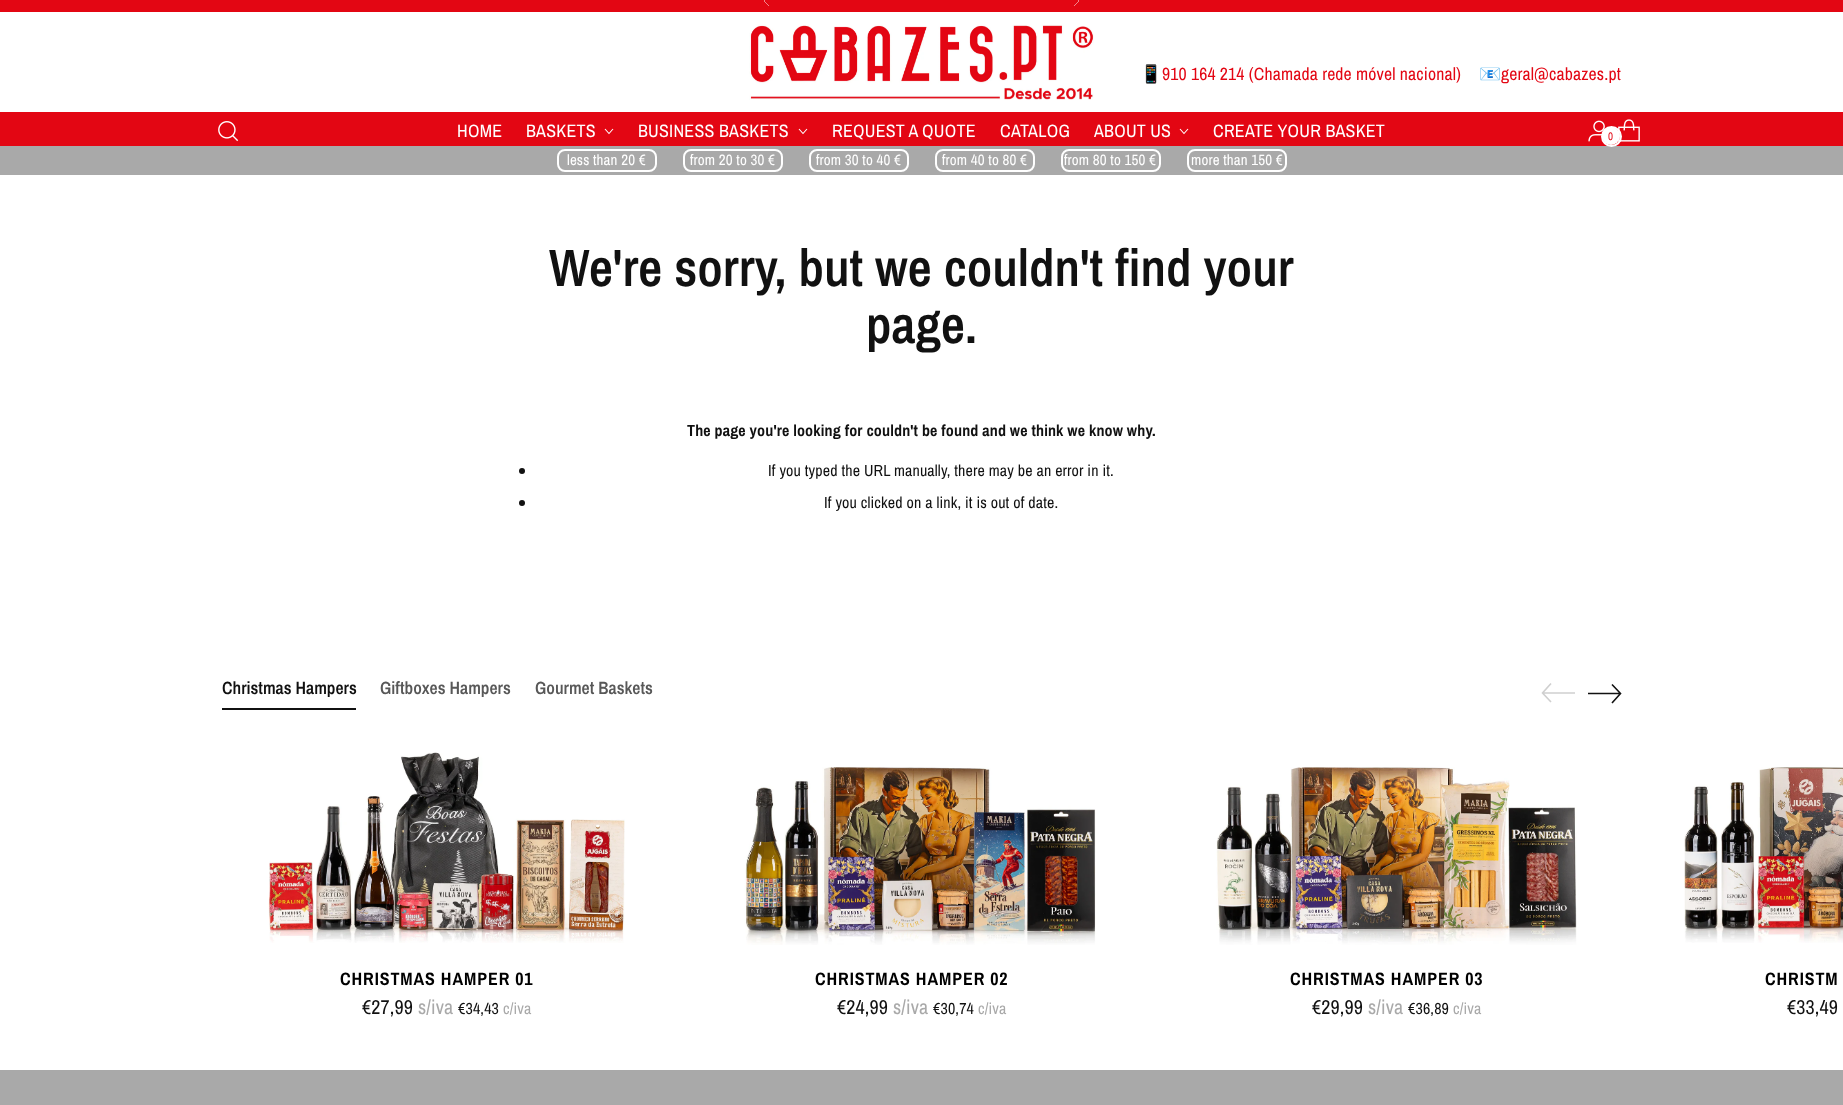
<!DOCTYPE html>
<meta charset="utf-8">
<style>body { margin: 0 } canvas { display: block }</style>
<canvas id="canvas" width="1843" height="1105"></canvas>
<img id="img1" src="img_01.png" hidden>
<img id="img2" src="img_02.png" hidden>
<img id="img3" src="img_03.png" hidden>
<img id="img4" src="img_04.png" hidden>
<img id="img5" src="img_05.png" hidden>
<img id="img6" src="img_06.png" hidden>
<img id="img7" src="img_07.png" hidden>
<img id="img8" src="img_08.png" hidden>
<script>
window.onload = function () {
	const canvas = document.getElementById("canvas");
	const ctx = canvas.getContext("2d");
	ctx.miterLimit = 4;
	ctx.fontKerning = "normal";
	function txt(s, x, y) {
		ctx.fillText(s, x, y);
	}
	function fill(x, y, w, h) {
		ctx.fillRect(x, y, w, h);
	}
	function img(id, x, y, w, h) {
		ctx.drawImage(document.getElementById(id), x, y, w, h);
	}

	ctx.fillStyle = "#FFFFFF";
	fill(0, 0, 1843, 1105);
	ctx.fillStyle = "#E30613";
	fill(0, 0, 1843, 12);
	ctx.beginPath();
	ctx.moveTo(769, -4);
	ctx.lineTo(764, 1);
	ctx.lineTo(769, 6);
	ctx.strokeStyle = "#F18389";
	ctx.stroke();
	ctx.beginPath();
	ctx.moveTo(1074, 6);
	ctx.lineTo(1079, 1);
	ctx.lineTo(1074, -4);
	ctx.stroke();
	img("img1", 749, 24, 345, 76);
	fill(0, 112, 1843, 34);
	img("img2", 218, 121, 21, 21);
	ctx.beginPath();
	ctx.moveTo(605, 129);
	ctx.lineTo(609, 133.5);
	ctx.lineTo(613, 129);
	ctx.strokeStyle = "#FFFFFF";
	ctx.lineWidth = 1.1;
	ctx.stroke();
	ctx.beginPath();
	ctx.moveTo(799, 129);
	ctx.lineTo(803, 133.5);
	ctx.lineTo(807, 129);
	ctx.stroke();
	ctx.beginPath();
	ctx.moveTo(1180, 129);
	ctx.lineTo(1184, 133.5);
	ctx.lineTo(1188, 129);
	ctx.stroke();
	img("img3", 1588, 120, 17, 22);
	img("img4", 1618, 119, 22, 23);
	ctx.fillStyle = "#A9A9A9";
	fill(0, 146, 1843, 29);
	ctx.beginPath();
	ctx.arc(1611.5, 136.5, 9.5, 0, Math.PI * 2);
	ctx.lineWidth = 2;
	ctx.stroke();
	ctx.fillStyle = "#FFFFFF";
	ctx.beginPath();
	ctx.arc(1611, 136, 9, 0, Math.PI * 2);
	ctx.fill();
	ctx.beginPath();
	ctx.roundRect(558, 150, 98, 21, 7);
	ctx.stroke();
	ctx.beginPath();
	ctx.roundRect(684, 150, 98, 21, 7);
	ctx.stroke();
	ctx.beginPath();
	ctx.roundRect(810, 150, 98, 21, 7);
	ctx.stroke();
	ctx.beginPath();
	ctx.roundRect(936, 150, 98, 21, 7);
	ctx.stroke();
	ctx.beginPath();
	ctx.roundRect(1062, 150, 98, 21, 7);
	ctx.stroke();
	ctx.beginPath();
	ctx.roundRect(1188, 150, 98, 21, 7);
	ctx.stroke();
	ctx.fillStyle = "#111111";
	ctx.beginPath();
	ctx.arc(522, 471, 3, 0, Math.PI * 2);
	ctx.fill();
	ctx.beginPath();
	ctx.arc(522, 503, 3, 0, Math.PI * 2);
	ctx.fill();
	fill(222, 708, 134, 2);
	ctx.beginPath();
	ctx.moveTo(1551, 683.5);
	ctx.lineTo(1542.5, 693);
	ctx.lineTo(1551, 702);
	ctx.moveTo(1542.5, 693);
	ctx.lineTo(1575, 693);
	ctx.strokeStyle = "#CFCFCF";
	ctx.lineWidth = 1.6;
	ctx.stroke();
	ctx.beginPath();
	ctx.moveTo(1612, 703);
	ctx.lineTo(1620.5, 693.5);
	ctx.lineTo(1612, 684.5);
	ctx.moveTo(1620.5, 693.5);
	ctx.lineTo(1588, 693.5);
	ctx.strokeStyle = "#111111";
	ctx.stroke();
	img("img5", 268, 752, 357, 191);
	img("img6", 744, 767, 352, 178);
	img("img7", 1216, 767, 361, 178);
	img("img8", 1684, 767, 159, 176);
	ctx.fillStyle = "#A9A9A9";
	fill(0, 1070, 1843, 35);
	ctx.letterSpacing = "0.15px";
	ctx.font = "17.75px Noto Color Emoji";
	ctx.fillStyle = "#E30613";
	txt("📱", 1140, 80);
	ctx.font = "17.75px Archivo Narrow";
	txt("910 164 214 (Chamada rede móvel nacional)", 1162, 80);
	ctx.font = "17.75px Noto Color Emoji";
	txt("📧", 1479, 80);
	ctx.font = "17.75px Archivo Narrow";
	txt("geral@cabazes.pt", 1501, 80);
	ctx.letterSpacing = "0.25px";
	ctx.font = "18px Archivo Narrow";
	ctx.fillStyle = "#FFFFFF";
	txt("HOME", 457, 137);
	txt("BASKETS", 526, 137);
	txt("BUSINESS BASKETS", 638, 137);
	txt("REQUEST A QUOTE", 832, 137);
	txt("CATALOG", 1000, 137);
	txt("ABOUT US", 1094, 137);
	txt("CREATE YOUR BASKET", 1213, 137);
	ctx.letterSpacing = "0.15px";
	ctx.font = "11px Archivo Narrow";
	ctx.fillStyle = "#E30613";
	txt("0", 1608, 140);
	ctx.font = "15px Archivo Narrow";
	ctx.fillStyle = "#FFFFFF";
	txt("less than 20 €", 567, 165);
	txt("from 20 to 30 €", 690, 165);
	txt("from 30 to 40 €", 816, 165);
	txt("from 40 to 80 €", 942, 165);
	txt("from 80 to 150 €", 1064, 165);
	txt("more than 150 €", 1191, 165);
	ctx.letterSpacing = "0px";
	ctx.font = "600 52.5px Archivo Narrow";
	ctx.fillStyle = "#111111";
	txt("We're sorry, but we couldn't find your", 549, 286);
	txt("page.", 866, 343);
	ctx.letterSpacing = "0.15px";
	ctx.font = "bold 16px Archivo Narrow";
	txt("The page you're looking for couldn't be found and we think we know why.", 687, 436);
	ctx.font = "16px Archivo Narrow";
	txt("If you typed the URL manually, there may be an error in it.", 768, 476);
	txt("If you clicked on a link, it is out of date.", 824, 508);
	ctx.letterSpacing = "0px";
	ctx.font = "600 17.75px Archivo Narrow";
	txt("Christmas Hampers", 222, 694);
	ctx.fillStyle = "#585858";
	txt("Giftboxes Hampers", 380, 694);
	txt("Gourmet Baskets", 535, 694);
	ctx.letterSpacing = "0.9px";
	ctx.font = "bold 18px Archivo Narrow";
	ctx.fillStyle = "#000000";
	txt("CHRISTMAS HAMPER 01", 340, 985);
	ctx.letterSpacing = "0.15px";
	ctx.font = "20px Archivo Narrow";
	ctx.fillStyle = "#111111";
	txt("€27,99", 362, 1014);
	ctx.fillStyle = "#A9A9A9";
	txt("s/iva", 418, 1014);
	ctx.font = "16px Archivo Narrow";
	ctx.fillStyle = "#111111";
	txt("€34,43", 458, 1014);
	ctx.fillStyle = "#A9A9A9";
	txt("c/iva", 503, 1014);
	ctx.letterSpacing = "0.9px";
	ctx.font = "bold 18px Archivo Narrow";
	ctx.fillStyle = "#000000";
	txt("CHRISTMAS HAMPER 02", 815, 985);
	ctx.letterSpacing = "0.15px";
	ctx.font = "20px Archivo Narrow";
	ctx.fillStyle = "#111111";
	txt("€24,99", 837, 1014);
	ctx.fillStyle = "#A9A9A9";
	txt("s/iva", 893, 1014);
	ctx.font = "16px Archivo Narrow";
	ctx.fillStyle = "#111111";
	txt("€30,74", 933, 1014);
	ctx.fillStyle = "#A9A9A9";
	txt("c/iva", 978, 1014);
	ctx.letterSpacing = "0.9px";
	ctx.font = "bold 18px Archivo Narrow";
	ctx.fillStyle = "#000000";
	txt("CHRISTMAS HAMPER 03", 1290, 985);
	ctx.letterSpacing = "0.15px";
	ctx.font = "20px Archivo Narrow";
	ctx.fillStyle = "#111111";
	txt("€29,99", 1312, 1014);
	ctx.fillStyle = "#A9A9A9";
	txt("s/iva", 1368, 1014);
	ctx.font = "16px Archivo Narrow";
	ctx.fillStyle = "#111111";
	txt("€36,89", 1408, 1014);
	ctx.fillStyle = "#A9A9A9";
	txt("c/iva", 1453, 1014);
	ctx.letterSpacing = "0.9px";
	ctx.font = "bold 18px Archivo Narrow";
	ctx.fillStyle = "#000000";
	txt("CHRISTM", 1765, 985);
	ctx.letterSpacing = "0.15px";
	ctx.font = "20px Archivo Narrow";
	ctx.fillStyle = "#111111";
	txt("€33,49", 1787, 1014);
};
</script>
